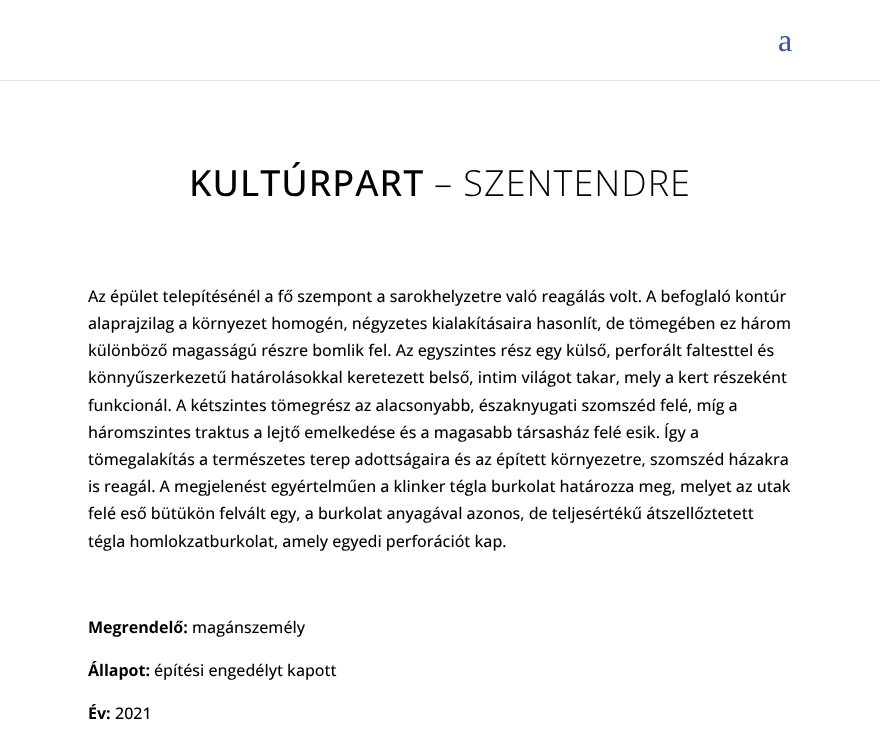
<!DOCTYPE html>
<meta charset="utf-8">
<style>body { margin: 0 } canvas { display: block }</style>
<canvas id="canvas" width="880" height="737"></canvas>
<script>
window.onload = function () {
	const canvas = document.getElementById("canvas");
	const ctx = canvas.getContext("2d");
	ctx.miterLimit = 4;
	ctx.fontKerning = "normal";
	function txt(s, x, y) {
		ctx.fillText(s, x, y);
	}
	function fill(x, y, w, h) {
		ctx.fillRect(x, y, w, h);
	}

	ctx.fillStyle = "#FFFFFF";
	fill(0, 0, 880, 737);
	ctx.fillStyle = "#E6E6E6";
	fill(0, 80, 880, 1);
	ctx.font = "32px Liberation Serif";
	ctx.fillStyle = "#2F579B";
	txt("a", 778, 51);
	ctx.letterSpacing = "1px";
	ctx.font = "500 36px Open Sans";
	ctx.fillStyle = "#000000";
	txt("KULTÚRPART", 189, 196);
	ctx.font = "300 36px Open Sans";
	txt("– SZENTENDRE", 434, 196);
	ctx.letterSpacing = "0px";
	ctx.font = "500 16px Open Sans";
	txt("Az épület telepítésénél a fő szempont a sarokhelyzetre való reagálás volt. A befoglaló kontúr", 88, 302);
	txt("alaprajzilag a környezet homogén, négyzetes kialakításaira hasonlít, de tömegében ez három", 88, 329);
	txt("különböző magasságú részre bomlik fel. Az egyszintes rész egy külső, perforált faltesttel és", 88, 356);
	txt("könnyűszerkezetű határolásokkal keretezett belső, intim világot takar, mely a kert részeként", 88, 383);
	txt("funkcionál. A kétszintes tömegrész az alacsonyabb, északnyugati szomszéd felé, míg a", 88, 411);
	txt("háromszintes traktus a lejtő emelkedése és a magasabb társasház felé esik. Így a", 88, 438);
	txt("tömegalakítás a természetes terep adottságaira és az épített környezetre, szomszéd házakra", 88, 465);
	txt("is reagál. A megjelenést egyértelműen a klinker tégla burkolat határozza meg, melyet az utak", 88, 492);
	txt("felé eső bütükön felvált egy, a burkolat anyagával azonos, de teljesértékű átszellőztetett", 88, 519);
	txt("tégla homlokzatburkolat, amely egyedi perforációt kap.", 88, 547);
	ctx.font = "bold 16px Open Sans";
	txt("Megrendelő:", 88, 633);
	ctx.font = "500 16px Open Sans";
	txt("magánszemély", 192, 633);
	ctx.font = "bold 16px Open Sans";
	txt("Állapot:", 88, 676);
	ctx.font = "500 16px Open Sans";
	txt("építési engedélyt kapott", 154, 676);
	ctx.font = "bold 16px Open Sans";
	txt("Év:", 88, 719);
	ctx.font = "500 16px Open Sans";
	txt("2021", 115, 719);
};
</script>
